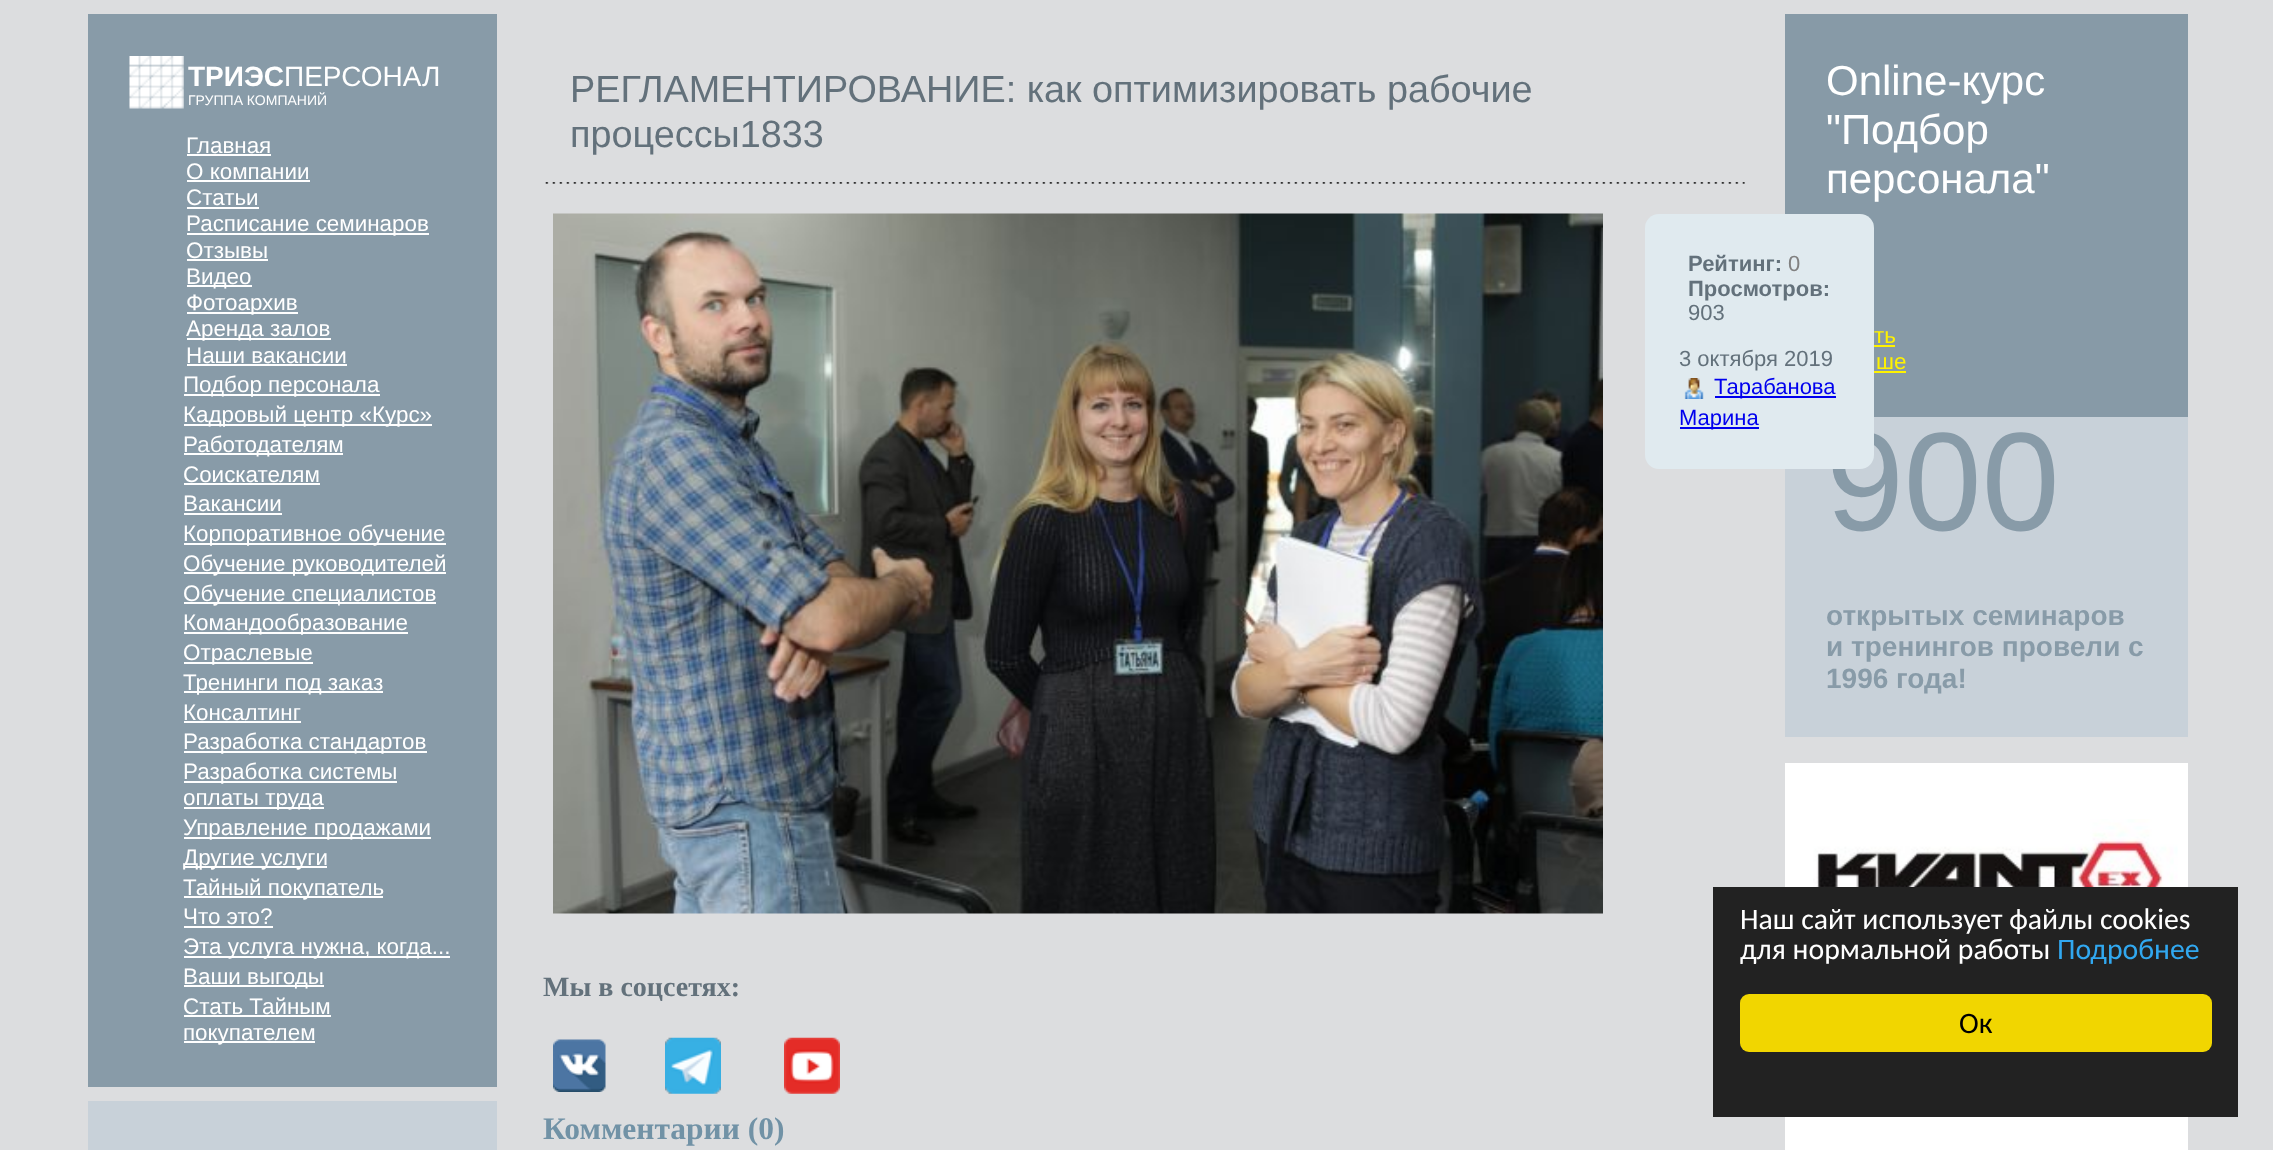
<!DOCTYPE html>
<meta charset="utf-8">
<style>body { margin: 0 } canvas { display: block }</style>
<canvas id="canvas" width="2273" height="1150"></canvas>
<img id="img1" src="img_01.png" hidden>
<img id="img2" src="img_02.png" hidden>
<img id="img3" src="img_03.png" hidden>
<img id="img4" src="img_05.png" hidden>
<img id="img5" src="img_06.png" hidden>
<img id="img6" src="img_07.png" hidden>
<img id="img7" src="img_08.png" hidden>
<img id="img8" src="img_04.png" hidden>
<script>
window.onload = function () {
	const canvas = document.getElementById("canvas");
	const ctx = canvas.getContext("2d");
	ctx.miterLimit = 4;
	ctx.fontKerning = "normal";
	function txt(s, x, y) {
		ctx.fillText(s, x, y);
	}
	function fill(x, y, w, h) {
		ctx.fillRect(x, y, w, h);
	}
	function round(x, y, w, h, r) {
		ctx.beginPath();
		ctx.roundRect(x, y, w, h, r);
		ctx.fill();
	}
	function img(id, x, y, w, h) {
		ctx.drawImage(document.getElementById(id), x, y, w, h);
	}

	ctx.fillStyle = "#DCDDDF";
	fill(0, 0, 2273, 1150);
	ctx.fillStyle = "#889BA8";
	fill(88, 14, 409, 1073);
	img("img1", 129, 56, 55, 53);
	ctx.fillStyle = "#FFFFFF";
	fill(187, 154, 84, 2);
	fill(187, 180, 123, 2);
	fill(187, 207, 72, 2);
	fill(187, 233, 242, 2);
	fill(187, 259, 81, 2);
	fill(187, 285, 65, 2);
	fill(187, 312, 111, 2);
	fill(187, 338, 144, 2);
	fill(187, 364, 160, 2);
	fill(184, 394, 196, 2);
	fill(184, 424, 248, 2);
	fill(184, 453, 159, 2);
	fill(184, 483, 136, 2);
	fill(184, 513, 98, 2);
	fill(184, 543, 262, 2);
	fill(184, 572, 262, 2);
	fill(184, 602, 252, 2);
	fill(184, 632, 224, 2);
	fill(184, 662, 129, 2);
	fill(184, 691, 199, 2);
	fill(184, 721, 117, 2);
	fill(184, 751, 243, 2);
	fill(184, 781, 213, 2);
	fill(184, 807, 140, 2);
	fill(184, 837, 247, 2);
	fill(184, 866, 143, 2);
	fill(184, 896, 199, 2);
	fill(184, 926, 89, 2);
	fill(184, 956, 266, 2);
	fill(184, 985, 140, 2);
	fill(184, 1015, 147, 2);
	fill(184, 1041, 131, 2);
	ctx.fillStyle = "#C8D1D9";
	fill(88, 1101, 409, 49);
	img("img2", 545, 182, 1200, 2);
	img("img3", 553, 213, 1050, 701);
	img("img4", 553, 1039, 53, 53);
	img("img5", 665, 1037, 56, 57);
	img("img6", 784, 1037, 56, 57);
	fill(1785, 417, 403, 320);
	ctx.fillStyle = "#879AA7";
	fill(1785, 14, 403, 403);
	ctx.fillStyle = "#FFF200";
	fill(1874, 345, 21, 2);
	fill(1874, 371, 32, 2);
	ctx.fillStyle = "#FFFFFF";
	fill(1785, 763, 403, 387);
	img("img7", 1813, 819, 365, 68);
	ctx.fillStyle = "#222222";
	fill(1713, 887, 525, 230);
	ctx.fillStyle = "#F1D600";
	round(1740, 994, 472, 58, 9);
	ctx.font = "bold 28px Liberation Sans";
	ctx.fillStyle = "#FFFFFF";
	txt("ТРИЭС", 188, 86);
	ctx.font = "28px Liberation Sans";
	txt("ПЕРСОНАЛ", 284, 86);
	ctx.font = "14px Liberation Sans";
	txt("ГРУППА КОМПАНИЙ", 188, 105);
	ctx.font = "22.4px Liberation Sans";
	txt("Главная", 186, 153);
	txt("О компании", 186, 179);
	txt("Статьи", 186, 205);
	txt("Расписание семинаров", 186, 231);
	txt("Отзывы", 186, 258);
	txt("Видео", 186, 284);
	txt("Фотоархив", 186, 310);
	txt("Аренда залов", 186, 336);
	txt("Наши вакансии", 186, 363);
	txt("Подбор персонала", 183, 392);
	txt("Кадровый центр «Курс»", 183, 422);
	txt("Работодателям", 183, 452);
	txt("Соискателям", 183, 482);
	txt("Вакансии", 183, 511);
	txt("Корпоративное обучение", 183, 541);
	txt("Обучение руководителей", 183, 571);
	txt("Обучение специалистов", 183, 601);
	txt("Командообразование", 183, 630);
	txt("Отраслевые", 183, 660);
	txt("Тренинги под заказ", 183, 690);
	txt("Консалтинг", 183, 720);
	txt("Разработка стандартов", 183, 749);
	txt("Разработка системы", 183, 779);
	txt("оплаты труда", 183, 805);
	txt("Управление продажами", 183, 835);
	txt("Другие услуги", 183, 865);
	txt("Тайный покупатель", 183, 895);
	txt("Что это?", 183, 924);
	txt("Эта услуга нужна, когда...", 183, 954);
	txt("Ваши выгоды", 183, 984);
	txt("Стать Тайным", 183, 1014);
	txt("покупателем", 183, 1040);
	ctx.font = "37.8px Liberation Sans";
	ctx.fillStyle = "#63717B";
	txt("РЕГЛАМЕНТИРОВАНИЕ: как оптимизировать рабочие", 570, 102);
	txt("процессы1833", 570, 147);
	ctx.font = "bold 28px Liberation Serif";
	txt("Мы в соцсетях:", 543, 996);
	ctx.font = "bold 31.5px Liberation Serif";
	ctx.fillStyle = "#7192A6";
	txt("Комментарии (0)", 543, 1139);
	ctx.font = "42px Liberation Sans";
	ctx.fillStyle = "#FFFFFF";
	txt("Online-курс", 1826, 95);
	txt("\"Подбор", 1826, 144);
	txt("персонала\"", 1826, 193);
	ctx.font = "22.4px Liberation Sans";
	ctx.fillStyle = "#FFF200";
	txt("ть", 1874, 343);
	txt("ше", 1876, 369);
	ctx.font = "140px Liberation Sans";
	ctx.fillStyle = "#889BA8";
	txt("900", 1826, 530);
	ctx.fillStyle = "#E0EAEF";
	round(1645, 214, 229, 255, 14);
	ctx.fillStyle = "#0000EE";
	fill(1680, 427, 79, 2);
	ctx.font = "22px Liberation Sans";
	txt("Марина", 1679, 425);
	fill(1715, 396, 121, 2);
	txt("Тарабанова", 1714, 394);
	img("img8", 1684, 378, 20, 21);
	ctx.fillStyle = "#63717B";
	txt("3 октября 2019", 1679, 366);
	txt("903", 1688, 320);
	ctx.font = "bold 22px Liberation Sans";
	txt("Просмотров:", 1688, 296);
	ctx.font = "22px Liberation Sans";
	ctx.fillStyle = "#808080";
	txt("0", 1788, 271);
	ctx.font = "bold 22px Liberation Sans";
	ctx.fillStyle = "#63717B";
	txt("Рейтинг:", 1688, 271);
	ctx.font = "bold 28px Liberation Sans";
	ctx.fillStyle = "#889BA8";
	txt("открытых семинаров", 1826, 625);
	txt("и тренингов провели с", 1826, 656);
	txt("1996 года!", 1826, 688);
	ctx.font = "29.75px Carlito";
	ctx.fillStyle = "#FFFFFF";
	txt("Наш сайт использует файлы cookies", 1740, 929);
	txt("для нормальной работы", 1740, 959);
	ctx.fillStyle = "#31A8F0";
	txt("Подробнее", 2057, 959);
	ctx.fillStyle = "#000000";
	txt("Ок", 1959, 1033);
};
</script>
